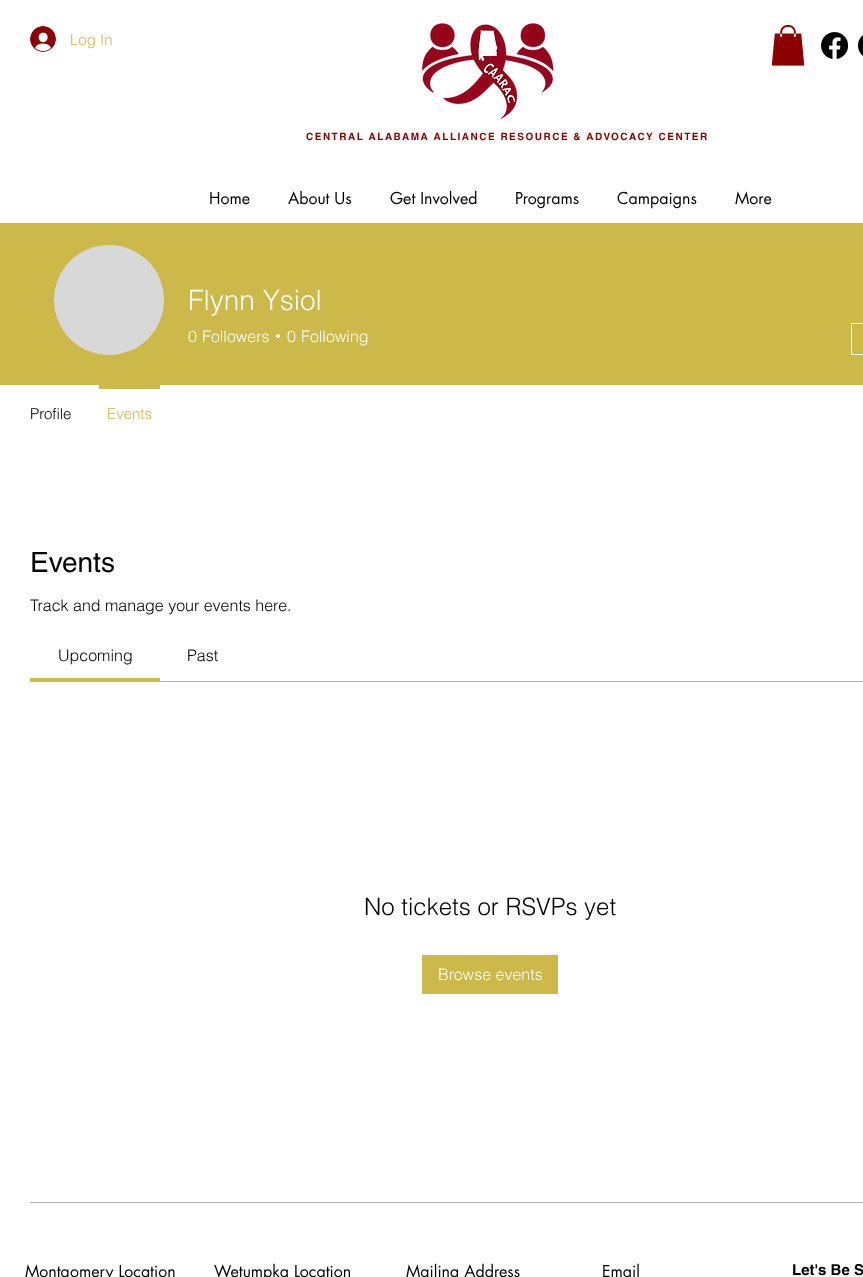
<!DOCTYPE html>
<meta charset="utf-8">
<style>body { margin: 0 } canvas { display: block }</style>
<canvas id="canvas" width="863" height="1277"></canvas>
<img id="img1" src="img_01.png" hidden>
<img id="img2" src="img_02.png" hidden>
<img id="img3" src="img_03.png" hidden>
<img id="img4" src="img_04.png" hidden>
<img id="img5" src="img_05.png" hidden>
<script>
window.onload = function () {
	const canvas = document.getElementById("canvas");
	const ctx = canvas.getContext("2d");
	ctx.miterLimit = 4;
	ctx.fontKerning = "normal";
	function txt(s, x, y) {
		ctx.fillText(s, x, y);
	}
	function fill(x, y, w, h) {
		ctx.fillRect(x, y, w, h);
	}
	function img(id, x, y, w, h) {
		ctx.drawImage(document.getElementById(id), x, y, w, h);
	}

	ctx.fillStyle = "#FFFFFF";
	fill(0, 0, 863, 1277);
	img("img1", 30, 26, 26, 26);
	img("img2", 771, 25, 34, 41);
	img("img3", 821, 32, 27, 27);
	img("img4", 858, 35, 5, 21);
	img("img5", 421, 23, 133, 97);
	ctx.fillStyle = "#CCB949";
	fill(0, 223, 863, 162);
	ctx.fillStyle = "#D8D8D8";
	ctx.beginPath();
	ctx.arc(109, 300, 55, 0, Math.PI * 2);
	ctx.fill();
	ctx.fillStyle = "#FFFFFF";
	ctx.beginPath();
	ctx.arc(278, 336, 2, 0, Math.PI * 2);
	ctx.fill();
	ctx.strokeStyle = "#FFFFFF";
	ctx.strokeRect(851.5, 323.5, 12, 31);
	ctx.fillStyle = "#CCB949";
	fill(99, 385, 61, 4);
	fill(30, 678, 130, 3);
	ctx.fillStyle = "#B3B3B3";
	fill(30, 681, 833, 1);
	ctx.fillStyle = "#CCB949";
	fill(422, 955, 136, 39);
	ctx.fillStyle = "#B3B3B3";
	fill(30, 1202, 833, 1);
	ctx.font = "300 15px helvetica";
	ctx.fillStyle = "#CCB949";
	txt("Log In", 70, 45);
	ctx.letterSpacing = "1.5px";
	ctx.font = "bold 10px helvetica";
	ctx.fillStyle = "#8B0000";
	txt("CENTRAL ALABAMA ALLIANCE RESOURCE & ADVOCACY CENTER", 306, 140);
	ctx.letterSpacing = "0px";
	ctx.font = "16px futura";
	ctx.fillStyle = "#000000";
	txt("Home", 209, 204);
	txt("About Us", 288, 204);
	txt("Get Involved", 390, 204);
	txt("Programs", 515, 204);
	txt("Campaigns", 617, 204);
	txt("More", 735, 204);
	ctx.font = "300 28px helvetica";
	ctx.fillStyle = "#FFFFFF";
	txt("Flynn Ysiol", 188, 310);
	ctx.font = "300 16px helvetica";
	txt("0", 188, 342);
	txt("Followers", 202, 342);
	txt("0", 287, 342);
	txt("Following", 301, 342);
	ctx.font = "300 15px helvetica";
	ctx.fillStyle = "#000000";
	txt("Profile", 30, 419);
	ctx.fillStyle = "#CCB949";
	txt("Events", 107, 419);
	ctx.font = "28px helvetica";
	ctx.fillStyle = "#000000";
	txt("Events", 30, 572);
	ctx.font = "300 16px helvetica";
	txt("Track and manage your events here.", 30, 611);
	txt("Upcoming", 58, 661);
	txt("Past", 187, 661);
	ctx.font = "300 24px helvetica";
	txt("No tickets or RSVPs yet", 364, 915);
	ctx.font = "300 16px helvetica";
	ctx.fillStyle = "#FFFFFF";
	txt("Browse events", 438, 980);
	ctx.font = "16px futura";
	ctx.fillStyle = "#000000";
	txt("Montgomery Location", 25, 1277);
	txt("Wetumpka Location", 214, 1277);
	txt("Mailing Address", 406, 1277);
	txt("Email", 602, 1277);
	ctx.font = "bold 15px helvetica";
	txt("Let's Be S", 792, 1275);
};
</script>
